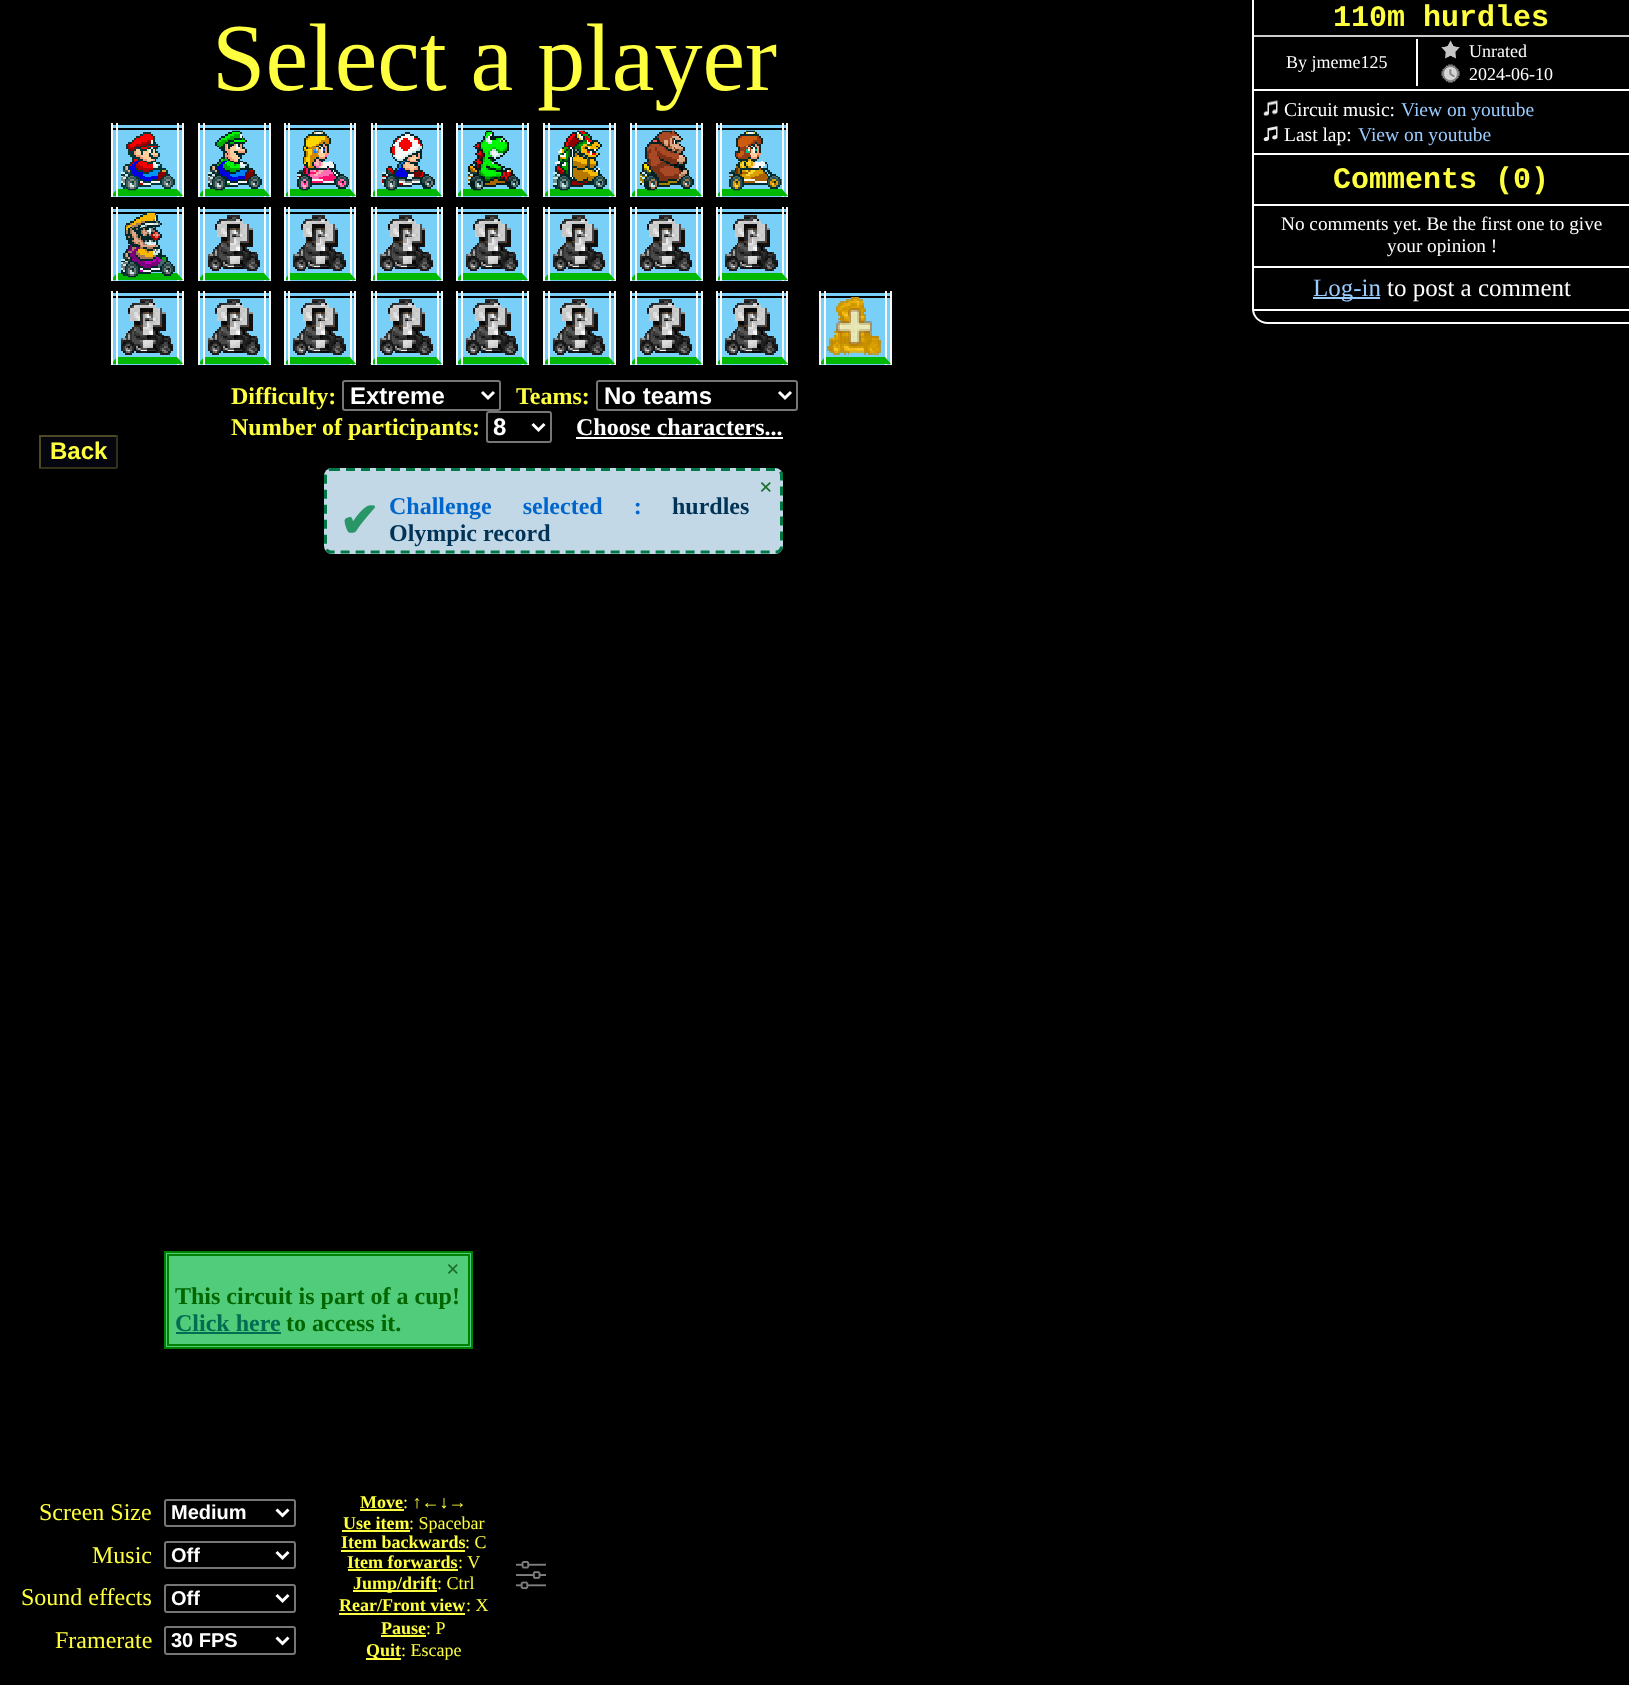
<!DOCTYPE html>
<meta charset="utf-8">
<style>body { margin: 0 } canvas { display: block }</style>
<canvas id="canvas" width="1629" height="1685"></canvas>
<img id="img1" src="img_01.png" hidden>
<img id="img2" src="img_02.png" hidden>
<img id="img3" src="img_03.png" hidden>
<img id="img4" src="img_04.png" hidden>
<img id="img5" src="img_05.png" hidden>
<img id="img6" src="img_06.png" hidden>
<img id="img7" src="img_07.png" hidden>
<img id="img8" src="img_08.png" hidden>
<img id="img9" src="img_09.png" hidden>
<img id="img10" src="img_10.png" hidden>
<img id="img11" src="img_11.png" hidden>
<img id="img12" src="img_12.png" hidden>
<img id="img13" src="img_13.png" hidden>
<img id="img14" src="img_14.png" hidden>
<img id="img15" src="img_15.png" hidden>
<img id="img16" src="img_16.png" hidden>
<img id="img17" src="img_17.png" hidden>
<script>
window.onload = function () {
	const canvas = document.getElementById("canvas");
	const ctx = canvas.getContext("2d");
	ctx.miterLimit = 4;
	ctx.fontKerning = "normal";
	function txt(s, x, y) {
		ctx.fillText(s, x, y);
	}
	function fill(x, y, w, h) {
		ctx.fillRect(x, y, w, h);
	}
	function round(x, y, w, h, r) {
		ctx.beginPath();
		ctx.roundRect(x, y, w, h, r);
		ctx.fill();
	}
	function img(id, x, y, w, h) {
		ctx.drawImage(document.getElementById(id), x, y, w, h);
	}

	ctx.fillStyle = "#000000";
	fill(0, 0, 1629, 1685);
	ctx.fillStyle = "#78D0F8";
	fill(113, 125, 69, 72);
	ctx.fillStyle = "#000000";
	fill(111, 128, 72, 2);
	ctx.fillStyle = "#F8F8F8";
	fill(177, 123, 2, 74);
	fill(182, 123, 2, 74);
	ctx.fillStyle = "#00B800";
	ctx.beginPath();
	ctx.moveTo(183, 196);
	ctx.lineTo(111, 196);
	ctx.lineTo(117, 189);
	ctx.lineTo(177, 189);
	ctx.closePath();
	ctx.fill();
	ctx.fillStyle = "#F8F8F8";
	fill(111, 123, 2, 74);
	fill(116, 123, 2, 74);
	img("img1", 121, 132, 54, 59);
	ctx.fillStyle = "#78D0F8";
	fill(200, 125, 69, 72);
	ctx.fillStyle = "#000000";
	fill(198, 128, 72, 2);
	ctx.fillStyle = "#F8F8F8";
	fill(264, 123, 2, 74);
	fill(269, 123, 2, 74);
	ctx.fillStyle = "#00B800";
	ctx.beginPath();
	ctx.moveTo(270, 196);
	ctx.lineTo(198, 196);
	ctx.lineTo(204, 189);
	ctx.lineTo(264, 189);
	ctx.closePath();
	ctx.fill();
	ctx.fillStyle = "#F8F8F8";
	fill(198, 123, 2, 74);
	fill(203, 123, 2, 74);
	img("img2", 208, 130, 54, 61);
	ctx.fillStyle = "#78D0F8";
	fill(286, 125, 68, 72);
	ctx.fillStyle = "#000000";
	fill(284, 128, 72, 2);
	ctx.fillStyle = "#F8F8F8";
	fill(350, 123, 2, 74);
	fill(354, 123, 2, 74);
	ctx.fillStyle = "#00B800";
	ctx.beginPath();
	ctx.moveTo(356, 196);
	ctx.lineTo(284, 196);
	ctx.lineTo(290, 189);
	ctx.lineTo(350, 189);
	ctx.closePath();
	ctx.fill();
	ctx.fillStyle = "#F8F8F8";
	fill(284, 123, 2, 74);
	fill(288, 123, 2, 74);
	img("img3", 297, 130, 52, 61);
	ctx.fillStyle = "#78D0F8";
	fill(373, 125, 68, 72);
	ctx.fillStyle = "#000000";
	fill(371, 128, 72, 2);
	ctx.fillStyle = "#F8F8F8";
	fill(437, 123, 2, 74);
	fill(441, 123, 2, 74);
	ctx.fillStyle = "#00B800";
	ctx.beginPath();
	ctx.moveTo(442, 196);
	ctx.lineTo(370, 196);
	ctx.lineTo(376, 189);
	ctx.lineTo(436, 189);
	ctx.closePath();
	ctx.fill();
	ctx.fillStyle = "#F8F8F8";
	fill(371, 123, 2, 74);
	fill(375, 123, 2, 74);
	img("img4", 382, 132, 53, 59);
	ctx.fillStyle = "#78D0F8";
	fill(458, 125, 69, 72);
	ctx.fillStyle = "#000000";
	fill(456, 128, 72, 2);
	ctx.fillStyle = "#F8F8F8";
	fill(522, 123, 2, 74);
	fill(527, 123, 2, 74);
	ctx.fillStyle = "#00B800";
	ctx.beginPath();
	ctx.moveTo(528, 196);
	ctx.lineTo(456, 196);
	ctx.lineTo(462, 189);
	ctx.lineTo(522, 189);
	ctx.closePath();
	ctx.fill();
	ctx.fillStyle = "#F8F8F8";
	fill(456, 123, 2, 74);
	fill(461, 123, 2, 74);
	img("img5", 468, 130, 52, 61);
	ctx.fillStyle = "#78D0F8";
	fill(545, 125, 69, 72);
	ctx.fillStyle = "#000000";
	fill(543, 128, 72, 2);
	ctx.fillStyle = "#F8F8F8";
	fill(609, 123, 2, 74);
	fill(614, 123, 2, 74);
	ctx.fillStyle = "#00B800";
	ctx.beginPath();
	ctx.moveTo(615, 196);
	ctx.lineTo(543, 196);
	ctx.lineTo(549, 189);
	ctx.lineTo(609, 189);
	ctx.closePath();
	ctx.fill();
	ctx.fillStyle = "#F8F8F8";
	fill(543, 123, 2, 74);
	fill(548, 123, 2, 74);
	img("img6", 553, 130, 54, 61);
	ctx.fillStyle = "#78D0F8";
	fill(632, 125, 69, 72);
	ctx.fillStyle = "#000000";
	fill(630, 128, 72, 2);
	ctx.fillStyle = "#F8F8F8";
	fill(696, 123, 2, 74);
	fill(701, 123, 2, 74);
	ctx.fillStyle = "#00B800";
	ctx.beginPath();
	ctx.moveTo(702, 196);
	ctx.lineTo(630, 196);
	ctx.lineTo(636, 189);
	ctx.lineTo(696, 189);
	ctx.closePath();
	ctx.fill();
	ctx.fillStyle = "#F8F8F8";
	fill(630, 123, 2, 74);
	fill(635, 123, 2, 74);
	img("img7", 640, 130, 54, 61);
	ctx.fillStyle = "#78D0F8";
	fill(718, 125, 68, 72);
	ctx.fillStyle = "#000000";
	fill(716, 128, 72, 2);
	ctx.fillStyle = "#F8F8F8";
	fill(782, 123, 2, 74);
	fill(786, 123, 2, 74);
	ctx.fillStyle = "#00B800";
	ctx.beginPath();
	ctx.moveTo(788, 196);
	ctx.lineTo(716, 196);
	ctx.lineTo(722, 189);
	ctx.lineTo(782, 189);
	ctx.closePath();
	ctx.fill();
	ctx.fillStyle = "#F8F8F8";
	fill(716, 123, 2, 74);
	fill(720, 123, 2, 74);
	img("img8", 729, 130, 53, 61);
	ctx.fillStyle = "#78D0F8";
	fill(113, 209, 69, 72);
	ctx.fillStyle = "#000000";
	fill(111, 212, 72, 2);
	ctx.fillStyle = "#F8F8F8";
	fill(177, 207, 2, 74);
	fill(182, 207, 2, 74);
	ctx.fillStyle = "#00B800";
	ctx.beginPath();
	ctx.moveTo(183, 280);
	ctx.lineTo(111, 280);
	ctx.lineTo(117, 273);
	ctx.lineTo(177, 273);
	ctx.closePath();
	ctx.fill();
	ctx.fillStyle = "#F8F8F8";
	fill(111, 207, 2, 74);
	fill(116, 207, 2, 74);
	img("img9", 121, 211, 54, 67);
	ctx.fillStyle = "#78D0F8";
	fill(200, 209, 69, 72);
	ctx.fillStyle = "#000000";
	fill(198, 212, 72, 2);
	ctx.fillStyle = "#F8F8F8";
	fill(264, 207, 2, 74);
	fill(269, 207, 2, 74);
	ctx.fillStyle = "#00B800";
	ctx.beginPath();
	ctx.moveTo(270, 280);
	ctx.lineTo(198, 280);
	ctx.lineTo(204, 273);
	ctx.lineTo(264, 273);
	ctx.closePath();
	ctx.fill();
	ctx.fillStyle = "#F8F8F8";
	fill(198, 207, 2, 74);
	fill(203, 207, 2, 74);
	img("img10", 208, 215, 52, 56);
	ctx.fillStyle = "#78D0F8";
	fill(286, 209, 68, 72);
	ctx.fillStyle = "#000000";
	fill(284, 212, 72, 2);
	ctx.fillStyle = "#F8F8F8";
	fill(350, 207, 2, 74);
	fill(354, 207, 2, 74);
	ctx.fillStyle = "#00B800";
	ctx.beginPath();
	ctx.moveTo(356, 280);
	ctx.lineTo(284, 280);
	ctx.lineTo(290, 273);
	ctx.lineTo(350, 273);
	ctx.closePath();
	ctx.fill();
	ctx.fillStyle = "#F8F8F8";
	fill(284, 207, 2, 74);
	fill(288, 207, 2, 74);
	img("img11", 293, 215, 53, 56);
	ctx.fillStyle = "#78D0F8";
	fill(373, 209, 68, 72);
	ctx.fillStyle = "#000000";
	fill(371, 212, 72, 2);
	ctx.fillStyle = "#F8F8F8";
	fill(437, 207, 2, 74);
	fill(441, 207, 2, 74);
	ctx.fillStyle = "#00B800";
	ctx.beginPath();
	ctx.moveTo(442, 280);
	ctx.lineTo(370, 280);
	ctx.lineTo(376, 273);
	ctx.lineTo(436, 273);
	ctx.closePath();
	ctx.fill();
	ctx.fillStyle = "#F8F8F8";
	fill(371, 207, 2, 74);
	fill(375, 207, 2, 74);
	img("img11", 380, 215, 53, 56);
	ctx.fillStyle = "#78D0F8";
	fill(458, 209, 69, 72);
	ctx.fillStyle = "#000000";
	fill(456, 212, 72, 2);
	ctx.fillStyle = "#F8F8F8";
	fill(522, 207, 2, 74);
	fill(527, 207, 2, 74);
	ctx.fillStyle = "#00B800";
	ctx.beginPath();
	ctx.moveTo(528, 280);
	ctx.lineTo(456, 280);
	ctx.lineTo(462, 273);
	ctx.lineTo(522, 273);
	ctx.closePath();
	ctx.fill();
	ctx.fillStyle = "#F8F8F8";
	fill(456, 207, 2, 74);
	fill(461, 207, 2, 74);
	img("img10", 466, 215, 52, 56);
	ctx.fillStyle = "#78D0F8";
	fill(545, 209, 69, 72);
	ctx.fillStyle = "#000000";
	fill(543, 212, 72, 2);
	ctx.fillStyle = "#F8F8F8";
	fill(609, 207, 2, 74);
	fill(614, 207, 2, 74);
	ctx.fillStyle = "#00B800";
	ctx.beginPath();
	ctx.moveTo(615, 280);
	ctx.lineTo(543, 280);
	ctx.lineTo(549, 273);
	ctx.lineTo(609, 273);
	ctx.closePath();
	ctx.fill();
	ctx.fillStyle = "#F8F8F8";
	fill(543, 207, 2, 74);
	fill(548, 207, 2, 74);
	img("img10", 553, 215, 52, 56);
	ctx.fillStyle = "#78D0F8";
	fill(632, 209, 69, 72);
	ctx.fillStyle = "#000000";
	fill(630, 212, 72, 2);
	ctx.fillStyle = "#F8F8F8";
	fill(696, 207, 2, 74);
	fill(701, 207, 2, 74);
	ctx.fillStyle = "#00B800";
	ctx.beginPath();
	ctx.moveTo(702, 280);
	ctx.lineTo(630, 280);
	ctx.lineTo(636, 273);
	ctx.lineTo(696, 273);
	ctx.closePath();
	ctx.fill();
	ctx.fillStyle = "#F8F8F8";
	fill(630, 207, 2, 74);
	fill(635, 207, 2, 74);
	img("img10", 640, 215, 52, 56);
	ctx.fillStyle = "#78D0F8";
	fill(718, 209, 68, 72);
	ctx.fillStyle = "#000000";
	fill(716, 212, 72, 2);
	ctx.fillStyle = "#F8F8F8";
	fill(782, 207, 2, 74);
	fill(786, 207, 2, 74);
	ctx.fillStyle = "#00B800";
	ctx.beginPath();
	ctx.moveTo(788, 280);
	ctx.lineTo(716, 280);
	ctx.lineTo(722, 273);
	ctx.lineTo(782, 273);
	ctx.closePath();
	ctx.fill();
	ctx.fillStyle = "#F8F8F8";
	fill(716, 207, 2, 74);
	fill(720, 207, 2, 74);
	img("img11", 725, 215, 53, 56);
	ctx.fillStyle = "#78D0F8";
	fill(113, 293, 69, 72);
	ctx.fillStyle = "#000000";
	fill(111, 296, 72, 2);
	ctx.fillStyle = "#F8F8F8";
	fill(177, 291, 2, 74);
	fill(182, 291, 2, 74);
	ctx.fillStyle = "#00B800";
	ctx.beginPath();
	ctx.moveTo(183, 364);
	ctx.lineTo(111, 364);
	ctx.lineTo(117, 357);
	ctx.lineTo(177, 357);
	ctx.closePath();
	ctx.fill();
	ctx.fillStyle = "#F8F8F8";
	fill(111, 291, 2, 74);
	fill(116, 291, 2, 74);
	img("img10", 121, 299, 52, 56);
	ctx.fillStyle = "#78D0F8";
	fill(200, 293, 69, 72);
	ctx.fillStyle = "#000000";
	fill(198, 296, 72, 2);
	ctx.fillStyle = "#F8F8F8";
	fill(264, 291, 2, 74);
	fill(269, 291, 2, 74);
	ctx.fillStyle = "#00B800";
	ctx.beginPath();
	ctx.moveTo(270, 364);
	ctx.lineTo(198, 364);
	ctx.lineTo(204, 357);
	ctx.lineTo(264, 357);
	ctx.closePath();
	ctx.fill();
	ctx.fillStyle = "#F8F8F8";
	fill(198, 291, 2, 74);
	fill(203, 291, 2, 74);
	img("img10", 208, 299, 52, 56);
	ctx.fillStyle = "#78D0F8";
	fill(286, 293, 68, 72);
	ctx.fillStyle = "#000000";
	fill(284, 296, 72, 2);
	ctx.fillStyle = "#F8F8F8";
	fill(350, 291, 2, 74);
	fill(354, 291, 2, 74);
	ctx.fillStyle = "#00B800";
	ctx.beginPath();
	ctx.moveTo(356, 364);
	ctx.lineTo(284, 364);
	ctx.lineTo(290, 357);
	ctx.lineTo(350, 357);
	ctx.closePath();
	ctx.fill();
	ctx.fillStyle = "#F8F8F8";
	fill(284, 291, 2, 74);
	fill(288, 291, 2, 74);
	img("img11", 293, 299, 53, 56);
	ctx.fillStyle = "#78D0F8";
	fill(373, 293, 68, 72);
	ctx.fillStyle = "#000000";
	fill(371, 296, 72, 2);
	ctx.fillStyle = "#F8F8F8";
	fill(437, 291, 2, 74);
	fill(441, 291, 2, 74);
	ctx.fillStyle = "#00B800";
	ctx.beginPath();
	ctx.moveTo(442, 364);
	ctx.lineTo(370, 364);
	ctx.lineTo(376, 357);
	ctx.lineTo(436, 357);
	ctx.closePath();
	ctx.fill();
	ctx.fillStyle = "#F8F8F8";
	fill(371, 291, 2, 74);
	fill(375, 291, 2, 74);
	img("img11", 380, 299, 53, 56);
	ctx.fillStyle = "#78D0F8";
	fill(458, 293, 69, 72);
	ctx.fillStyle = "#000000";
	fill(456, 296, 72, 2);
	ctx.fillStyle = "#F8F8F8";
	fill(522, 291, 2, 74);
	fill(527, 291, 2, 74);
	ctx.fillStyle = "#00B800";
	ctx.beginPath();
	ctx.moveTo(528, 364);
	ctx.lineTo(456, 364);
	ctx.lineTo(462, 357);
	ctx.lineTo(522, 357);
	ctx.closePath();
	ctx.fill();
	ctx.fillStyle = "#F8F8F8";
	fill(456, 291, 2, 74);
	fill(461, 291, 2, 74);
	img("img10", 466, 299, 52, 56);
	ctx.fillStyle = "#78D0F8";
	fill(545, 293, 69, 72);
	ctx.fillStyle = "#000000";
	fill(543, 296, 72, 2);
	ctx.fillStyle = "#F8F8F8";
	fill(609, 291, 2, 74);
	fill(614, 291, 2, 74);
	ctx.fillStyle = "#00B800";
	ctx.beginPath();
	ctx.moveTo(615, 364);
	ctx.lineTo(543, 364);
	ctx.lineTo(549, 357);
	ctx.lineTo(609, 357);
	ctx.closePath();
	ctx.fill();
	ctx.fillStyle = "#F8F8F8";
	fill(543, 291, 2, 74);
	fill(548, 291, 2, 74);
	img("img10", 553, 299, 52, 56);
	ctx.fillStyle = "#78D0F8";
	fill(632, 293, 69, 72);
	ctx.fillStyle = "#000000";
	fill(630, 296, 72, 2);
	ctx.fillStyle = "#F8F8F8";
	fill(696, 291, 2, 74);
	fill(701, 291, 2, 74);
	ctx.fillStyle = "#00B800";
	ctx.beginPath();
	ctx.moveTo(702, 364);
	ctx.lineTo(630, 364);
	ctx.lineTo(636, 357);
	ctx.lineTo(696, 357);
	ctx.closePath();
	ctx.fill();
	ctx.fillStyle = "#F8F8F8";
	fill(630, 291, 2, 74);
	fill(635, 291, 2, 74);
	img("img10", 640, 299, 52, 56);
	ctx.fillStyle = "#78D0F8";
	fill(718, 293, 68, 72);
	ctx.fillStyle = "#000000";
	fill(716, 296, 72, 2);
	ctx.fillStyle = "#F8F8F8";
	fill(782, 291, 2, 74);
	fill(786, 291, 2, 74);
	ctx.fillStyle = "#00B800";
	ctx.beginPath();
	ctx.moveTo(788, 364);
	ctx.lineTo(716, 364);
	ctx.lineTo(722, 357);
	ctx.lineTo(782, 357);
	ctx.closePath();
	ctx.fill();
	ctx.fillStyle = "#F8F8F8";
	fill(716, 291, 2, 74);
	fill(720, 291, 2, 74);
	img("img11", 725, 299, 53, 56);
	ctx.fillStyle = "#78D0F8";
	fill(821, 293, 69, 72);
	ctx.fillStyle = "#000000";
	fill(819, 296, 72, 2);
	ctx.fillStyle = "#F8F8F8";
	fill(885, 291, 2, 74);
	fill(890, 291, 2, 74);
	ctx.fillStyle = "#00B800";
	ctx.beginPath();
	ctx.moveTo(891, 364);
	ctx.lineTo(819, 364);
	ctx.lineTo(825, 357);
	ctx.lineTo(885, 357);
	ctx.closePath();
	ctx.fill();
	ctx.fillStyle = "#F8F8F8";
	fill(819, 291, 2, 74);
	fill(824, 291, 2, 74);
	img("img12", 827, 297, 54, 58);
	ctx.beginPath();
	ctx.roundRect(343, 381, 157, 29, 2);
	ctx.strokeStyle = "#767676";
	ctx.lineWidth = 2;
	ctx.stroke();
	ctx.beginPath();
	ctx.moveTo(482, 392);
	ctx.lineTo(488, 398);
	ctx.lineTo(494, 392);
	ctx.strokeStyle = "#FFFFFF";
	ctx.lineWidth = 3;
	ctx.stroke();
	ctx.beginPath();
	ctx.roundRect(597, 381, 200, 29, 2);
	ctx.strokeStyle = "#767676";
	ctx.lineWidth = 2;
	ctx.stroke();
	ctx.beginPath();
	ctx.moveTo(779, 392);
	ctx.lineTo(785, 398);
	ctx.lineTo(791, 392);
	ctx.strokeStyle = "#FFFFFF";
	ctx.lineWidth = 3;
	ctx.stroke();
	ctx.beginPath();
	ctx.roundRect(487, 412, 64, 30, 2);
	ctx.strokeStyle = "#767676";
	ctx.lineWidth = 2;
	ctx.stroke();
	ctx.beginPath();
	ctx.moveTo(532.5, 424);
	ctx.lineTo(538.5, 430);
	ctx.lineTo(544.5, 424);
	ctx.strokeStyle = "#FFFFFF";
	ctx.lineWidth = 3;
	ctx.stroke();
	ctx.fillStyle = "#FFFFFF";
	fill(576, 437, 207, 2);
	ctx.fillStyle = "#060610";
	fill(41, 437, 75, 30);
	ctx.fillStyle = "#4D4923";
	fill(39, 435, 78, 2);
	ctx.fillStyle = "#333117";
	fill(116, 435, 2, 33);
	fill(39, 467, 78, 2);
	ctx.fillStyle = "#4D4923";
	fill(39, 435, 2, 33);
	ctx.fillStyle = "#FFFFFF";
	ctx.beginPath();
	ctx.moveTo(1252, 0);
	ctx.lineTo(1629, 0);
	ctx.lineTo(1629, 324);
	ctx.lineTo(1268, 324);
	ctx.bezierCurveTo(1259, 324, 1252, 317, 1252, 309);
	ctx.closePath();
	ctx.moveTo(1254, 0);
	ctx.lineTo(1629, 0);
	ctx.lineTo(1629, 322);
	ctx.lineTo(1268, 322);
	ctx.bezierCurveTo(1260, 322, 1254, 316, 1254, 309);
	ctx.closePath();
	ctx.fill("evenodd");
	ctx.fillStyle = "#CCCCCC";
	fill(1254, 35, 375, 2);
	ctx.fillStyle = "#FFFFFF";
	fill(1254, 89, 375, 2);
	img("img13", 1441, 40, 19, 19);
	fill(1416, 39, 2, 47);
	img("img14", 1441, 64, 19, 19);
	fill(1254, 153, 375, 2);
	img("img15", 1263, 100, 15, 16);
	img("img16", 1263, 126, 15, 15);
	fill(1254, 204, 375, 2);
	fill(1254, 266, 375, 2);
	fill(1254, 309, 375, 2);
	ctx.fillStyle = "#99CCFF";
	fill(1313, 297, 67, 2);
	ctx.fillStyle = "#C2D8E6";
	round(324, 468, 459, 86, 8);
	ctx.beginPath();
	ctx.moveTo(331, 469.5);
	ctx.lineTo(776, 469.5);
	ctx.bezierCurveTo(779, 469.5, 781.5, 472, 781.5, 475);
	ctx.lineTo(781.5, 546.5);
	ctx.bezierCurveTo(781.5, 549.5, 779, 552, 776, 552);
	ctx.lineTo(331, 552);
	ctx.bezierCurveTo(328, 552, 325.5, 549.5, 325.5, 546.5);
	ctx.lineTo(325.5, 475);
	ctx.bezierCurveTo(325.5, 472, 328, 469.5, 331, 469.5);
	ctx.closePath();
	ctx.strokeStyle = "#007744";
	ctx.setLineDash([9, 6]);
	ctx.stroke();
	ctx.fillStyle = "#51CC7A";
	ctx.beginPath();
	ctx.rect(165, 1252, 307, 96);
	ctx.fill();
	ctx.strokeStyle = "#008000";
	ctx.lineWidth = 2;
	ctx.setLineDash([]);
	ctx.stroke();
	ctx.strokeRect(168, 1255, 301, 90);
	ctx.fillStyle = "#006C51";
	fill(176, 1332, 105, 2);
	ctx.beginPath();
	ctx.roundRect(165, 1500, 130, 26, 2);
	ctx.strokeStyle = "#767676";
	ctx.stroke();
	ctx.beginPath();
	ctx.moveTo(276.5, 1509.5);
	ctx.lineTo(282.5, 1515.5);
	ctx.lineTo(288.5, 1509.5);
	ctx.strokeStyle = "#FFFFFF";
	ctx.lineWidth = 3;
	ctx.stroke();
	ctx.fillStyle = "#FEFF3F";
	fill(360, 1509, 44, 2);
	fill(342, 1530, 68, 2);
	fill(341, 1550, 124, 2);
	fill(348, 1569, 110, 2);
	fill(353, 1590, 84, 2);
	fill(339, 1613, 126, 2);
	fill(381, 1635, 45, 2);
	fill(366, 1658, 35, 2);
	img("img17", 516, 1561, 30, 29);
	ctx.beginPath();
	ctx.roundRect(165, 1542, 130, 26, 2);
	ctx.strokeStyle = "#767676";
	ctx.lineWidth = 2;
	ctx.stroke();
	ctx.beginPath();
	ctx.moveTo(276.5, 1552);
	ctx.lineTo(282.5, 1558);
	ctx.lineTo(288.5, 1552);
	ctx.strokeStyle = "#FFFFFF";
	ctx.lineWidth = 3;
	ctx.stroke();
	ctx.beginPath();
	ctx.roundRect(165, 1585, 130, 27, 2);
	ctx.strokeStyle = "#767676";
	ctx.lineWidth = 2;
	ctx.stroke();
	ctx.beginPath();
	ctx.moveTo(276.5, 1595);
	ctx.lineTo(282.5, 1601);
	ctx.lineTo(288.5, 1595);
	ctx.strokeStyle = "#FFFFFF";
	ctx.lineWidth = 3;
	ctx.stroke();
	ctx.beginPath();
	ctx.roundRect(165, 1627, 130, 27, 2);
	ctx.strokeStyle = "#767676";
	ctx.lineWidth = 2;
	ctx.stroke();
	ctx.beginPath();
	ctx.moveTo(276.5, 1637.5);
	ctx.lineTo(282.5, 1643.5);
	ctx.lineTo(288.5, 1637.5);
	ctx.strokeStyle = "#FFFFFF";
	ctx.lineWidth = 3;
	ctx.stroke();
	ctx.font = "96px Liberation Serif";
	txt("Select a player", 212, 90);
	ctx.font = "bold 24px Liberation Serif";
	txt("Difficulty:", 231, 404);
	ctx.font = "bold 24px Liberation Sans";
	ctx.fillStyle = "#FFFFFF";
	txt("Extreme", 350, 404);
	ctx.font = "bold 24px Liberation Serif";
	ctx.fillStyle = "#FEFF3F";
	txt("Teams:", 516, 404);
	ctx.font = "bold 24px Liberation Sans";
	ctx.fillStyle = "#FFFFFF";
	txt("No teams", 604, 404);
	ctx.font = "bold 24px Liberation Serif";
	ctx.fillStyle = "#FEFF3F";
	txt("Number of participants:", 231, 435);
	ctx.font = "bold 24px Liberation Sans";
	ctx.fillStyle = "#FFFFFF";
	txt("8", 493, 435);
	ctx.font = "bold 24px Liberation Serif";
	txt("Choose characters...", 576, 435);
	ctx.font = "bold 24px Liberation Sans";
	ctx.fillStyle = "#FEFF3F";
	txt("Back", 50, 459);
	ctx.font = "bold 30px Liberation Mono";
	txt("110m hurdles", 1333, 26);
	ctx.font = "18px Liberation Serif";
	ctx.fillStyle = "#FFFFFF";
	txt("Unrated", 1469, 57);
	txt("By jmeme125", 1286, 68);
	txt("2024-06-10", 1469, 80);
	ctx.font = "19.5px Liberation Serif";
	txt("Circuit music:", 1284, 116);
	ctx.fillStyle = "#99CCFF";
	txt("View on youtube", 1401, 116);
	ctx.fillStyle = "#FFFFFF";
	txt("Last lap:", 1284, 141);
	ctx.fillStyle = "#99CCFF";
	txt("View on youtube", 1358, 141);
	ctx.font = "bold 30px Liberation Mono";
	ctx.fillStyle = "#FEFF3F";
	txt("Comments (0)", 1333, 188);
	ctx.font = "19.25px Liberation Serif";
	ctx.fillStyle = "#FFFFFF";
	txt("No comments yet. Be the first one to give", 1281, 230);
	txt("your opinion !", 1387, 252);
	ctx.font = "25px Liberation Serif";
	ctx.fillStyle = "#99CCFF";
	txt("Log-in", 1313, 296);
	ctx.fillStyle = "#FFFFFF";
	txt("to post a comment", 1387, 296);
	ctx.font = "bold 24px Liberation Serif";
	ctx.fillStyle = "#1C702B";
	txt("×", 759, 495);
	ctx.font = "bold 48px DejaVu Sans";
	ctx.fillStyle = "#289667";
	txt("✔", 339, 537);
	ctx.wordSpacing = "25px";
	ctx.font = "bold 24px Liberation Serif";
	ctx.fillStyle = "#0066CC";
	txt("Challenge selected :", 389, 514);
	ctx.wordSpacing = "0px";
	ctx.fillStyle = "#003356";
	txt("hurdles", 672, 514);
	txt("Olympic record", 389, 541);
	ctx.fillStyle = "#1C702B";
	txt("×", 446, 1277);
	ctx.fillStyle = "#006600";
	txt("This circuit is part of a cup!", 175, 1304);
	ctx.fillStyle = "#006C51";
	txt("Click here", 175, 1331);
	ctx.fillStyle = "#006600";
	txt("to access it.", 286, 1331);
	ctx.font = "24px Liberation Serif";
	ctx.fillStyle = "#FEFF3F";
	txt("Screen Size", 39, 1520);
	ctx.font = "bold 20px Liberation Sans";
	ctx.fillStyle = "#FFFFFF";
	txt("Medium", 171, 1519);
	ctx.font = "bold 18px Liberation Serif";
	ctx.fillStyle = "#FEFF3F";
	txt("Move", 360, 1508);
	ctx.font = "18px Liberation Serif";
	txt(": ↑←↓→", 403, 1508);
	ctx.font = "bold 18px Liberation Serif";
	txt("Use item", 343, 1529);
	ctx.font = "18px Liberation Serif";
	txt(": Spacebar", 409, 1529);
	ctx.font = "bold 18px Liberation Serif";
	txt("Item backwards", 341, 1548);
	ctx.font = "18px Liberation Serif";
	txt(": C", 465, 1548);
	ctx.font = "bold 18px Liberation Serif";
	txt("Item forwards", 347, 1568);
	ctx.font = "18px Liberation Serif";
	txt(": V", 458, 1568);
	ctx.font = "bold 18px Liberation Serif";
	txt("Jump/drift", 353, 1589);
	ctx.font = "18px Liberation Serif";
	txt(": Ctrl", 437, 1589);
	ctx.font = "bold 18px Liberation Serif";
	txt("Rear/Front view", 339, 1611);
	ctx.font = "18px Liberation Serif";
	txt(": X", 466, 1611);
	ctx.font = "bold 18px Liberation Serif";
	txt("Pause", 381, 1634);
	ctx.font = "18px Liberation Serif";
	txt(": P", 426, 1634);
	ctx.font = "bold 18px Liberation Serif";
	txt("Quit", 366, 1656);
	ctx.font = "18px Liberation Serif";
	txt(": Escape", 401, 1656);
	ctx.font = "24px Liberation Serif";
	txt("Music", 92, 1563);
	ctx.font = "bold 20px Liberation Sans";
	ctx.fillStyle = "#FFFFFF";
	txt("Off", 171, 1562);
	ctx.font = "24px Liberation Serif";
	ctx.fillStyle = "#FEFF3F";
	txt("Sound effects", 21, 1605);
	ctx.font = "bold 20px Liberation Sans";
	ctx.fillStyle = "#FFFFFF";
	txt("Off", 171, 1605);
	ctx.font = "24px Liberation Serif";
	ctx.fillStyle = "#FEFF3F";
	txt("Framerate", 55, 1648);
	ctx.font = "bold 20px Liberation Sans";
	ctx.fillStyle = "#FFFFFF";
	txt("30 FPS", 171, 1647);
};
</script>
